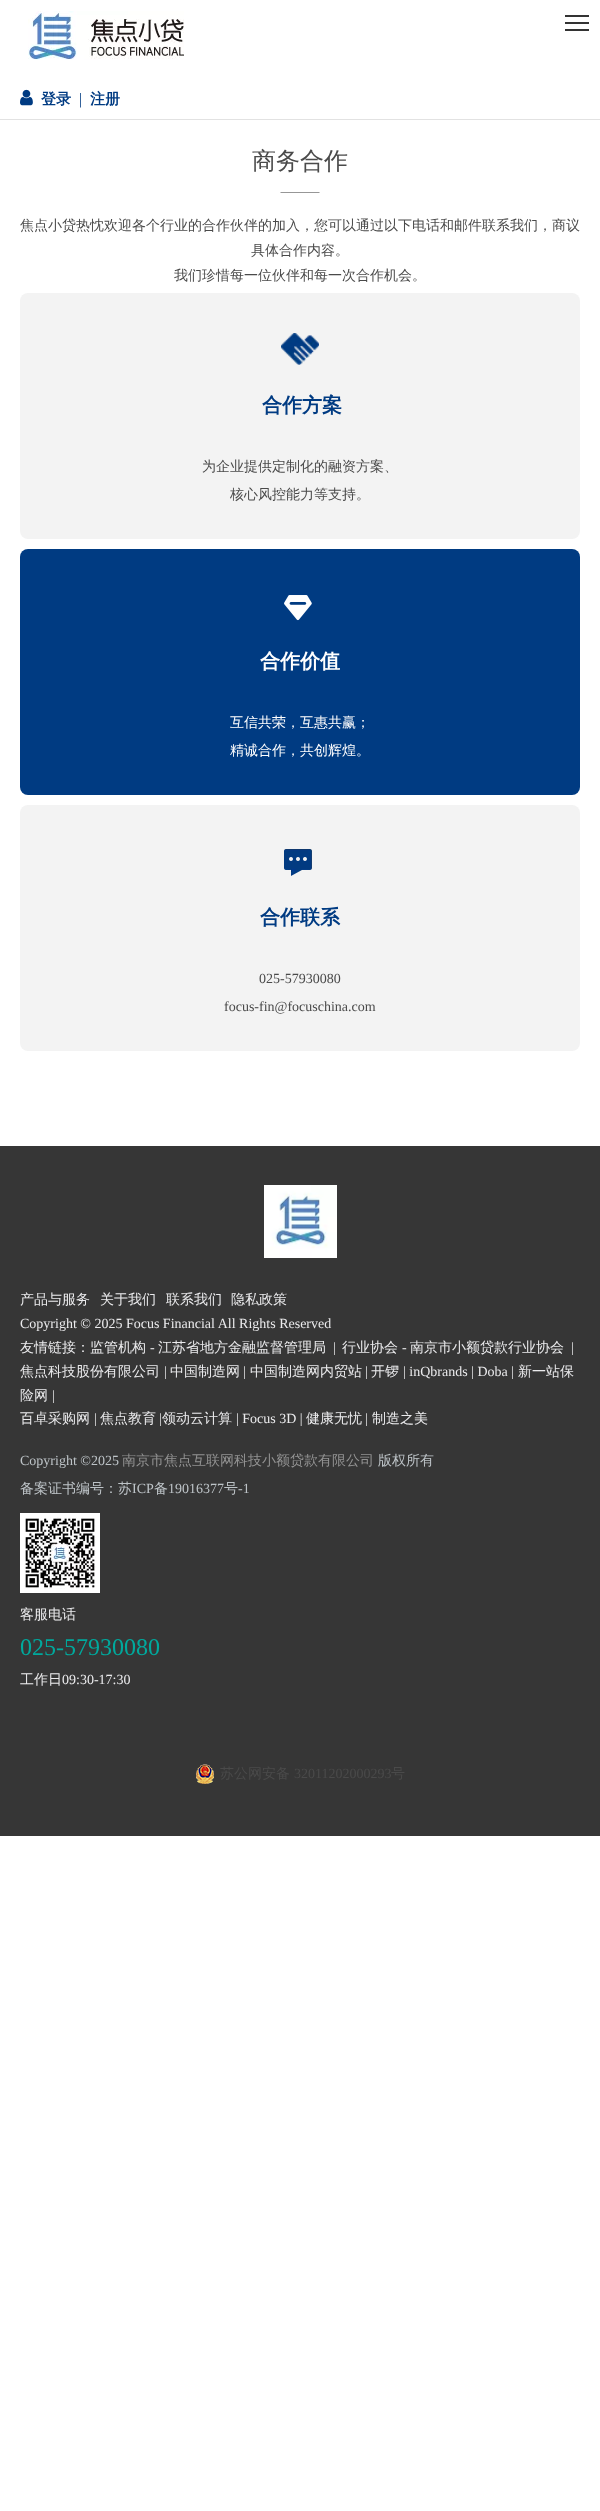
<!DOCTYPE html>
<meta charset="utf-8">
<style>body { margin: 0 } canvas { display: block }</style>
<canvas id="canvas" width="600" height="2511"></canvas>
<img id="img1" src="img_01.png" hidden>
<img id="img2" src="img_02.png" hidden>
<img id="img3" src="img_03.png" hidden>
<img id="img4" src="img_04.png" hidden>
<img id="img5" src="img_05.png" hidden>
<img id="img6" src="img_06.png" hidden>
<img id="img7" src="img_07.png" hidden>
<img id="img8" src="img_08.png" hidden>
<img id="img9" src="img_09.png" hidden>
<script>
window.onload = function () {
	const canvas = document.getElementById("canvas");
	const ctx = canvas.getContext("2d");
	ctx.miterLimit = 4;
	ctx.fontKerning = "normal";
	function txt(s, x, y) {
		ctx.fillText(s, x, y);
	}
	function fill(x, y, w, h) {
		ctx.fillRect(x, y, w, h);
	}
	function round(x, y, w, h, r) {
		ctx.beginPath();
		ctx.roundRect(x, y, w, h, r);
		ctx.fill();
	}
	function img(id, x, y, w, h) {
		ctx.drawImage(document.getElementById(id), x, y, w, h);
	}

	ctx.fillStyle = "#FFFFFF";
	fill(0, 0, 600, 2511);
	ctx.fillStyle = "#E2E2E2";
	fill(0, 119, 600, 1);
	img("img1", 28, 11, 156, 49);
	ctx.fillStyle = "#333333";
	fill(565, 15, 24, 2);
	fill(565, 22, 24, 2);
	fill(565, 29, 24, 2);
	img("img2", 20, 89, 13, 17);
	img("img3", 280, 192, 40, 1);
	ctx.fillStyle = "#F3F3F3";
	round(20, 293, 560, 246, 8);
	img("img4", 281, 333, 38, 32);
	ctx.fillStyle = "#003B82";
	round(20, 549, 560, 246, 8);
	img("img5", 284, 595, 28, 26);
	ctx.fillStyle = "#F3F3F3";
	round(20, 805, 560, 246, 8);
	img("img6", 284, 849, 28, 27);
	ctx.fillStyle = "#363636";
	fill(0, 1146, 600, 690);
	img("img7", 264, 1185, 73, 73);
	img("img8", 20, 1513, 80, 80);
	img("img9", 196, 1764, 18, 20);
	ctx.font = "bold 15px WenQuanYi Zen Hei";
	ctx.fillStyle = "#003B82";
	txt("登录", 41, 104);
	ctx.font = "16px Liberation Serif";
	txt("|", 79, 104);
	ctx.font = "bold 15px WenQuanYi Zen Hei";
	txt("注册", 90, 104);
	ctx.font = "500 24px WenQuanYi Zen Hei";
	ctx.fillStyle = "#4A4A4A";
	txt("商务合作", 252, 169);
	ctx.font = "500 14px WenQuanYi Zen Hei";
	txt("焦点小贷热忱欢迎各个行业的合作伙伴的加入，您可以通过以下电话和邮件联系我们，商议", 20, 230);
	txt("具体合作内容。", 251, 255);
	txt("我们珍惜每一位伙伴和每一次合作机会。", 174, 280);
	ctx.font = "bold 20px WenQuanYi Zen Hei";
	ctx.fillStyle = "#003B82";
	txt("合作方案", 262, 412);
	ctx.font = "500 14px WenQuanYi Zen Hei";
	ctx.fillStyle = "#4A4A4A";
	txt("为企业提供定制化的融资方案、", 202, 471);
	txt("核心风控能力等支持。", 230, 499);
	ctx.font = "bold 20px WenQuanYi Zen Hei";
	ctx.fillStyle = "#FFFFFF";
	txt("合作价值", 260, 668);
	ctx.font = "500 14px WenQuanYi Zen Hei";
	txt("互信共荣，互惠共赢；", 230, 727);
	txt("精诚合作，共创辉煌。", 230, 755);
	ctx.font = "bold 20px WenQuanYi Zen Hei";
	ctx.fillStyle = "#003B82";
	txt("合作联系", 260, 924);
	ctx.font = "14px Liberation Serif";
	ctx.fillStyle = "#4A4A4A";
	txt("025-57930080", 259, 983);
	txt("focus-fin@focuschina.com", 224, 1011);
	ctx.font = "500 14px WenQuanYi Zen Hei";
	ctx.fillStyle = "#EBEBED";
	txt("产品与服务", 20, 1304);
	txt("关于我们", 100, 1304);
	txt("联系我们", 166, 1304);
	txt("隐私政策", 231, 1304);
	ctx.font = "14px Liberation Serif";
	txt("Copyright © 2025 Focus Financial All Rights Reserved", 20, 1328);
	ctx.font = "500 14px WenQuanYi Zen Hei";
	txt("友情链接：监管机构", 20, 1352);
	ctx.font = "14px Liberation Serif";
	txt("-", 150, 1352);
	ctx.font = "500 14px WenQuanYi Zen Hei";
	txt("江苏省地方金融监督管理局", 158, 1352);
	ctx.font = "14px Liberation Serif";
	txt("|", 333, 1352);
	ctx.font = "500 14px WenQuanYi Zen Hei";
	txt("行业协会", 342, 1352);
	ctx.font = "14px Liberation Serif";
	txt("-", 402, 1352);
	ctx.font = "500 14px WenQuanYi Zen Hei";
	txt("南京市小额贷款行业协会", 410, 1352);
	ctx.font = "14px Liberation Serif";
	txt("|", 571, 1352);
	ctx.font = "500 14px WenQuanYi Zen Hei";
	txt("焦点科技股份有限公司", 20, 1376);
	ctx.font = "14px Liberation Serif";
	txt("|", 164, 1376);
	ctx.font = "500 14px WenQuanYi Zen Hei";
	txt("中国制造网", 170, 1376);
	ctx.font = "14px Liberation Serif";
	txt("|", 243, 1376);
	ctx.font = "500 14px WenQuanYi Zen Hei";
	txt("中国制造网内贸站", 250, 1376);
	ctx.font = "14px Liberation Serif";
	txt("|", 365, 1376);
	ctx.font = "500 14px WenQuanYi Zen Hei";
	txt("开锣", 371, 1376);
	ctx.font = "14px Liberation Serif";
	txt("| inQbrands | Doba |", 403, 1376);
	ctx.font = "500 14px WenQuanYi Zen Hei";
	txt("新一站保", 518, 1376);
	txt("险网", 20, 1400);
	ctx.font = "14px Liberation Serif";
	txt("|", 52, 1400);
	ctx.font = "500 14px WenQuanYi Zen Hei";
	txt("百卓采购网", 20, 1423);
	ctx.font = "14px Liberation Serif";
	txt("|", 94, 1423);
	ctx.font = "500 14px WenQuanYi Zen Hei";
	txt("焦点教育", 100, 1423);
	ctx.font = "14px Liberation Serif";
	txt("|", 159, 1423);
	ctx.font = "500 14px WenQuanYi Zen Hei";
	txt("领动云计算", 162, 1423);
	ctx.font = "14px Liberation Serif";
	txt("| Focus 3D |", 236, 1423);
	ctx.font = "500 14px WenQuanYi Zen Hei";
	txt("健康无忧", 306, 1423);
	ctx.font = "14px Liberation Serif";
	txt("|", 365, 1423);
	ctx.font = "500 14px WenQuanYi Zen Hei";
	txt("制造之美", 372, 1423);
	ctx.font = "14px Liberation Serif";
	ctx.fillStyle = "#BDC3C7";
	txt("Copyright ©2025", 20, 1465);
	ctx.font = "500 14px WenQuanYi Zen Hei";
	ctx.fillStyle = "#939393";
	txt("南京市焦点互联网科技小额贷款有限公司", 122, 1465);
	ctx.fillStyle = "#BDC3C7";
	txt("版权所有", 378, 1465);
	txt("备案证书编号：苏", 20, 1493);
	ctx.font = "14px Liberation Serif";
	txt("ICP", 132, 1493);
	ctx.font = "500 14px WenQuanYi Zen Hei";
	txt("备", 154, 1493);
	ctx.font = "14px Liberation Serif";
	txt("19016377", 168, 1493);
	ctx.font = "500 14px WenQuanYi Zen Hei";
	txt("号", 224, 1493);
	ctx.font = "14px Liberation Serif";
	txt("-1", 238, 1493);
	ctx.font = "500 14px WenQuanYi Zen Hei";
	ctx.fillStyle = "#EBEBED";
	txt("客服电话", 20, 1619);
	ctx.font = "24px Liberation Serif";
	ctx.fillStyle = "#00A99D";
	txt("025-57930080", 20, 1655);
	ctx.font = "500 14px WenQuanYi Zen Hei";
	ctx.fillStyle = "#EBEBED";
	txt("工作日", 20, 1684);
	ctx.font = "14px Liberation Serif";
	txt("09:30-17:30", 62, 1684);
	ctx.font = "500 14px WenQuanYi Zen Hei";
	ctx.fillStyle = "#4A4A4A";
	txt("苏公网安备", 220, 1778);
	ctx.font = "14px Liberation Serif";
	txt("32011202000293", 294, 1778);
	ctx.font = "500 14px WenQuanYi Zen Hei";
	txt("号", 391, 1778);
};
</script>
